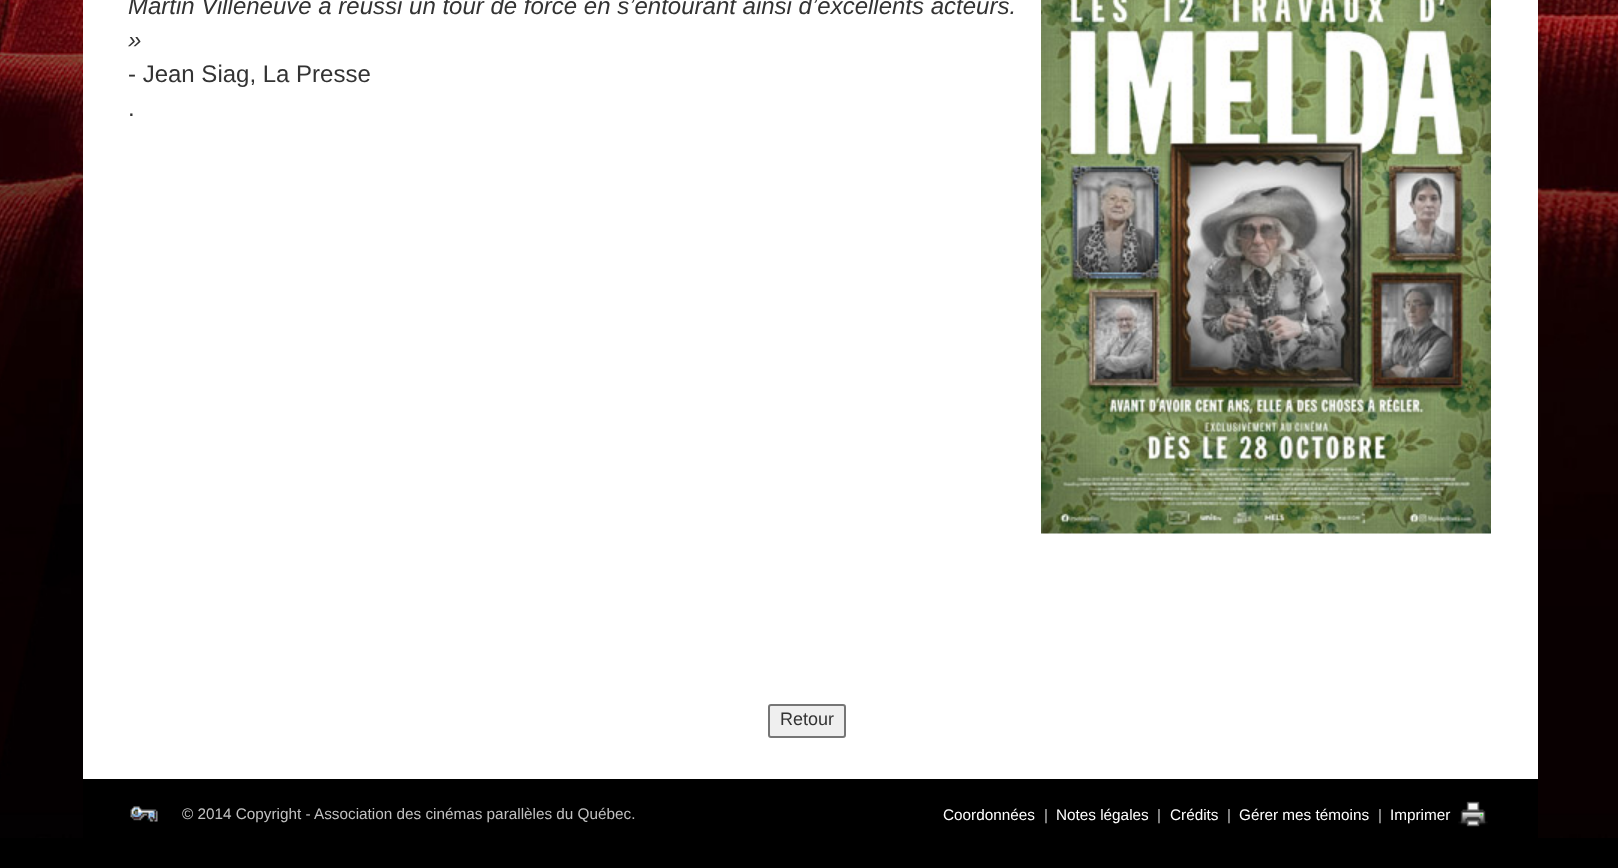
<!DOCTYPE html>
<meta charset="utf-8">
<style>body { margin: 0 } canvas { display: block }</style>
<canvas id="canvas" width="1618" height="868"></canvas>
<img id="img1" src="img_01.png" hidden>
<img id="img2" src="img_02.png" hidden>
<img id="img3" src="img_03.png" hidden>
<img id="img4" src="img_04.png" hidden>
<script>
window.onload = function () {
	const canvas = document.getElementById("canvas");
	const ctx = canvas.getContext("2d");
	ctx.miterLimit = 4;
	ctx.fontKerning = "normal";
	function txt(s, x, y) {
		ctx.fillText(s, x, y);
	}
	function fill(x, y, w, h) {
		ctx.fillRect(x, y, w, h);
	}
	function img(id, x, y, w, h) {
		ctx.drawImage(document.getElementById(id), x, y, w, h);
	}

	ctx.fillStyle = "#000000";
	fill(0, 0, 1618, 868);
	img("img1", 0, 0, 1618, 838);
	ctx.fillStyle = "#FFFFFF";
	fill(83, 0, 1455, 779);
	img("img2", 1041, 0, 450, 534);
	ctx.fillStyle = "#EFEFEF";
	ctx.beginPath();
	ctx.roundRect(769, 705, 76, 32, 2);
	ctx.fill();
	ctx.strokeStyle = "#767676";
	ctx.lineWidth = 2;
	ctx.stroke();
	ctx.fillStyle = "#000000";
	fill(83, 779, 1455, 59);
	img("img3", 130, 806, 28, 16);
	img("img4", 1458, 801, 30, 26);
	ctx.font = "italic 24px Liberation Sans";
	ctx.fillStyle = "#333333";
	txt("Martin Villeneuve a réussi un tour de force en s’entourant ainsi d’excellents acteurs.", 128, 14);
	txt("»", 128, 48);
	ctx.font = "24px Liberation Sans";
	txt("- Jean Siag, La Presse", 128, 82);
	txt(".", 128, 116);
	ctx.font = "18px Liberation Sans";
	txt("Retour", 780, 725);
	ctx.font = "15.3px Liberation Sans";
	ctx.fillStyle = "#C0C0C0";
	txt("© 2014 Copyright - Association des cinémas parallèles du Québec.", 182, 819);
	ctx.fillStyle = "#FFFFFF";
	txt("Coordonnées", 943, 820);
	ctx.fillStyle = "#C0C0C0";
	txt("|", 1044, 820);
	ctx.fillStyle = "#FFFFFF";
	txt("Notes légales", 1056, 820);
	ctx.fillStyle = "#C0C0C0";
	txt("|", 1157, 820);
	ctx.fillStyle = "#FFFFFF";
	txt("Crédits", 1170, 820);
	ctx.fillStyle = "#C0C0C0";
	txt("|", 1227, 820);
	ctx.fillStyle = "#FFFFFF";
	txt("Gérer mes témoins", 1239, 820);
	ctx.fillStyle = "#C0C0C0";
	txt("|", 1378, 820);
	ctx.fillStyle = "#FFFFFF";
	txt("Imprimer", 1390, 820);
};
</script>
